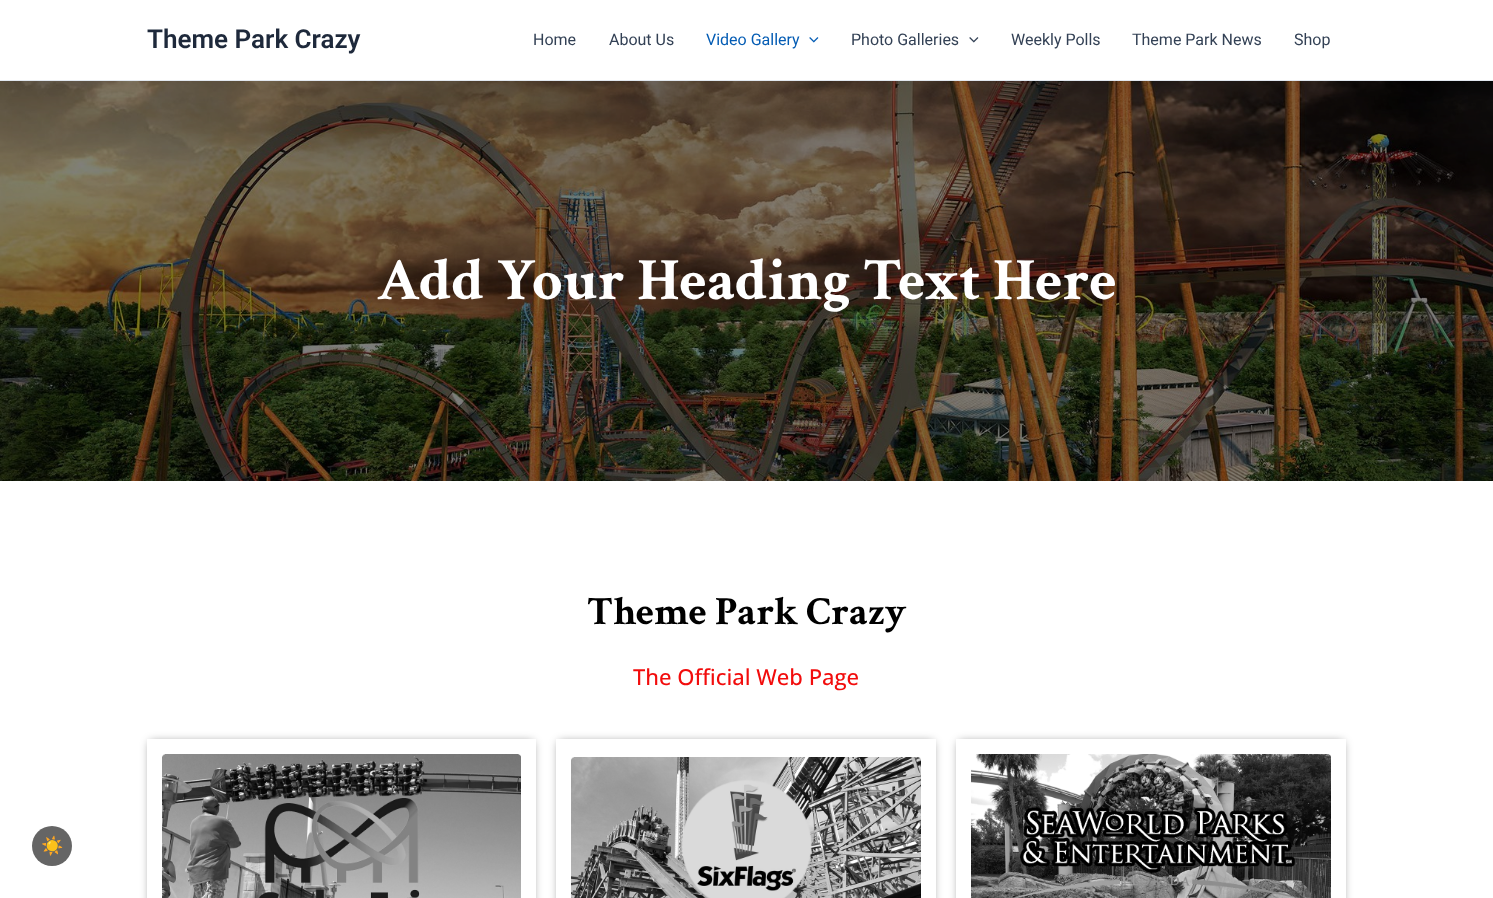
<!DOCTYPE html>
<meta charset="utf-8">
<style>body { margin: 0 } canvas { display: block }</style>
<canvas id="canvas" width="1493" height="898"></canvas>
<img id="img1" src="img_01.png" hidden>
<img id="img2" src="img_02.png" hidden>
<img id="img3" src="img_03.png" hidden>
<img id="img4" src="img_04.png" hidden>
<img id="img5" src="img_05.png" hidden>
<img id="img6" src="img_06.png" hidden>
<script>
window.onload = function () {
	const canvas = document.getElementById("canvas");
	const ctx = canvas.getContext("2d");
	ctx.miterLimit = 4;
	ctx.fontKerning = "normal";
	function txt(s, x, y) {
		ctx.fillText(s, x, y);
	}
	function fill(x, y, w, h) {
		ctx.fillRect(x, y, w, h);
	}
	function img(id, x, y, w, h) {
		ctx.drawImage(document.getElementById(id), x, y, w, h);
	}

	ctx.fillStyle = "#FFFFFF";
	fill(0, 0, 1493, 898);
	ctx.fillStyle = "#E2E8F0";
	fill(0, 80, 1493, 1);
	img("img1", 809, 37, 10, 6);
	img("img2", 969, 37, 10, 6);
	img("img3", 0, 81, 1493, 400);
	ctx.save();
	ctx.beginPath();
	ctx.moveTo(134, 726);
	ctx.lineTo(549, 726);
	ctx.lineTo(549, 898);
	ctx.lineTo(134, 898);
	ctx.closePath();
	ctx.moveTo(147, 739);
	ctx.lineTo(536, 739);
	ctx.lineTo(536, 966);
	ctx.lineTo(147, 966);
	ctx.closePath();
	ctx.clip("evenodd");
	ctx.fillStyle = "rgba(0, 0, 0, 0.5)";
	ctx.filter = "blur(5px)";
	ctx.beginPath();
	ctx.rect(150, 742, 383, 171);
	ctx.fill();
	ctx.filter = "none";
	ctx.restore();
	img("img4", 162, 754, 359, 144);
	ctx.save();
	ctx.beginPath();
	ctx.moveTo(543, 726);
	ctx.lineTo(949, 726);
	ctx.lineTo(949, 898);
	ctx.lineTo(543, 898);
	ctx.closePath();
	ctx.moveTo(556, 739);
	ctx.lineTo(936, 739);
	ctx.lineTo(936, 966);
	ctx.lineTo(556, 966);
	ctx.closePath();
	ctx.clip("evenodd");
	ctx.fillStyle = "rgba(0, 0, 0, 0.5)";
	ctx.filter = "blur(5px)";
	ctx.beginPath();
	ctx.rect(559, 742, 374, 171);
	ctx.fill();
	ctx.filter = "none";
	ctx.restore();
	img("img5", 571, 757, 350, 141);
	ctx.save();
	ctx.beginPath();
	ctx.moveTo(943, 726);
	ctx.lineTo(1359, 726);
	ctx.lineTo(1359, 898);
	ctx.lineTo(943, 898);
	ctx.closePath();
	ctx.moveTo(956, 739);
	ctx.lineTo(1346, 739);
	ctx.lineTo(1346, 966);
	ctx.lineTo(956, 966);
	ctx.closePath();
	ctx.clip("evenodd");
	ctx.fillStyle = "rgba(0, 0, 0, 0.5)";
	ctx.filter = "blur(5px)";
	ctx.beginPath();
	ctx.rect(959, 742, 384, 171);
	ctx.fill();
	ctx.filter = "none";
	ctx.restore();
	img("img6", 971, 754, 360, 144);
	ctx.fillStyle = "#656565";
	ctx.beginPath();
	ctx.arc(52, 846, 20, 0, Math.PI * 2);
	ctx.fill();
	ctx.font = "600 26px Roboto";
	ctx.fillStyle = "#1E293B";
	txt("Theme Park Crazy", 147, 48);
	ctx.font = "16px Roboto";
	ctx.fillStyle = "#334155";
	txt("Home", 533, 45);
	txt("About Us", 609, 45);
	ctx.fillStyle = "#045CB4";
	txt("Video Gallery", 706, 45);
	ctx.fillStyle = "#334155";
	txt("Photo Galleries", 851, 45);
	txt("Weekly Polls", 1011, 45);
	txt("Theme Park News", 1132, 45);
	txt("Shop", 1294, 45);
	ctx.font = "bold 60px Crimson Text";
	ctx.fillStyle = "#FFFFFF";
	txt("Add Your Heading Text Here", 377, 299);
	ctx.font = "bold 40px Crimson Text";
	ctx.fillStyle = "#000000";
	txt("Theme Park Crazy", 587, 624);
	ctx.font = "500 22px Open Sans";
	ctx.fillStyle = "#F20C0C";
	txt("The Official Web Page", 633, 685);
	ctx.font = "bold 18px Noto Color Emoji";
	ctx.fillStyle = "#EEEEEE";
	txt("☀️", 41, 852);
};
</script>
